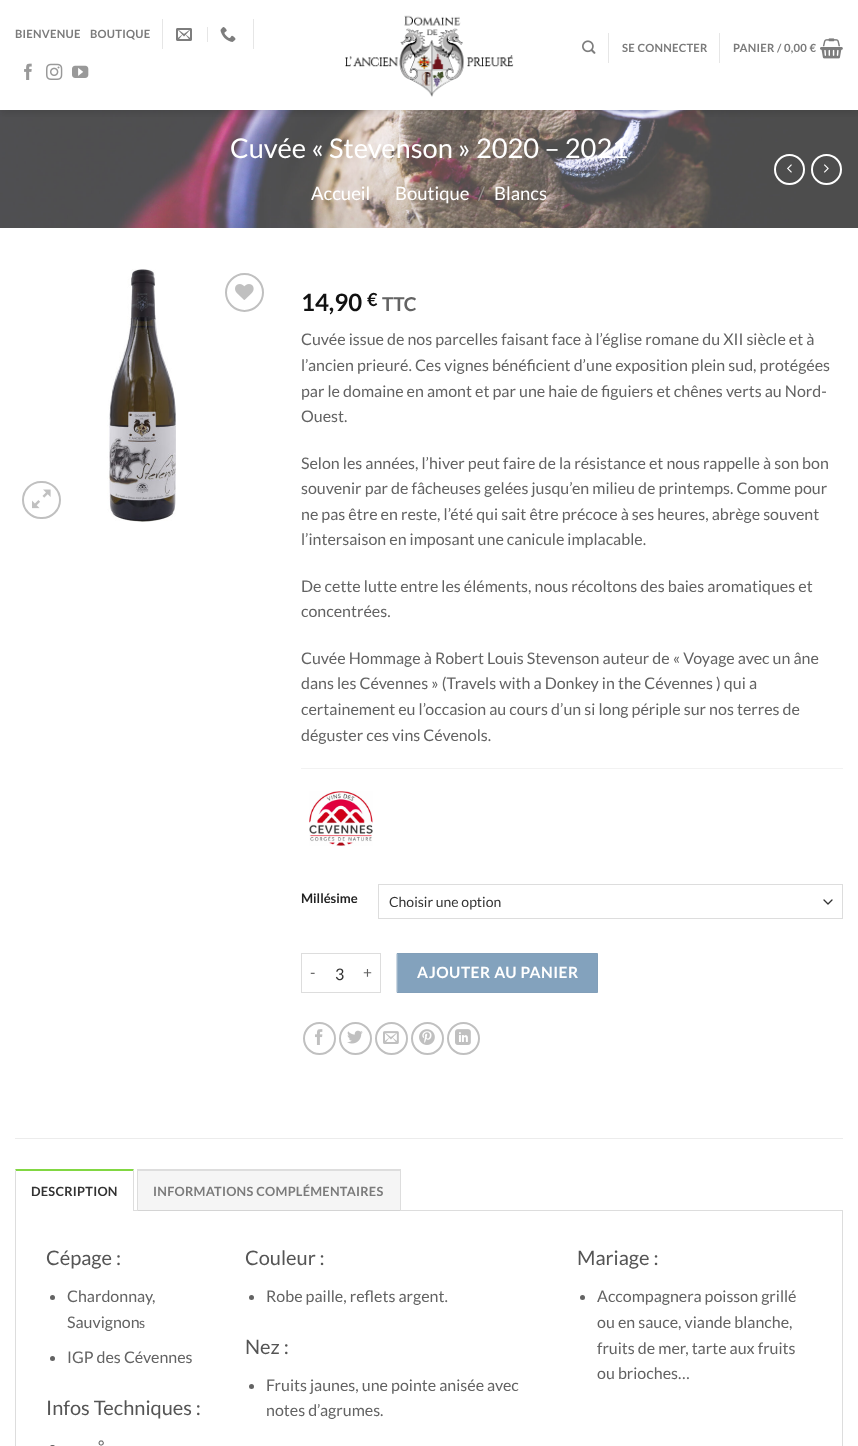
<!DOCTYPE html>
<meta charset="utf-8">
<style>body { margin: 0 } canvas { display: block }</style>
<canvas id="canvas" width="858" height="1446"></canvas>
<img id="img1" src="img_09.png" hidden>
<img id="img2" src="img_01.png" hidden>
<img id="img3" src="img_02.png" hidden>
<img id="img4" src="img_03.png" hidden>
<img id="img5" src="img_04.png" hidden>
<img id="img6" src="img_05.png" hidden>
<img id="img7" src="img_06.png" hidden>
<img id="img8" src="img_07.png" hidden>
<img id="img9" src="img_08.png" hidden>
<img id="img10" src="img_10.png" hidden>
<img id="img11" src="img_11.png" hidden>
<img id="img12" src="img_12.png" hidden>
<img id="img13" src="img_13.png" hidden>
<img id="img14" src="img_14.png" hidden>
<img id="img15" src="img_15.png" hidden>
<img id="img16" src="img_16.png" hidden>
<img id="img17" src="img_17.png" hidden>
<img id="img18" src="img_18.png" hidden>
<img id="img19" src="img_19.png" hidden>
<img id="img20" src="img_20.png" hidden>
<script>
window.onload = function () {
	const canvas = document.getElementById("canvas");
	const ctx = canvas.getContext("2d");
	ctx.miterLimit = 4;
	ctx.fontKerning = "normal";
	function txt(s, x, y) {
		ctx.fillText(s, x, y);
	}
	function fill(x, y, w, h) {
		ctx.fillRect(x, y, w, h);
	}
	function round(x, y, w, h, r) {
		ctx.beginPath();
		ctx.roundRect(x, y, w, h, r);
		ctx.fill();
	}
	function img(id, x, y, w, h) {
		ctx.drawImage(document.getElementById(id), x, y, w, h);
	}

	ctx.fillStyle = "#FFFFFF";
	fill(0, 0, 858, 1446);
	img("img1", 0, 110, 858, 118);
	ctx.save();
	ctx.beginPath();
	ctx.rect(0, 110, 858, 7);
	ctx.clip();
	ctx.fillStyle = "rgba(0, 0, 0, 0.15)";
	ctx.filter = "blur(5px)";
	ctx.beginPath();
	ctx.rect(1, 1, 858, 110);
	ctx.fill();
	ctx.filter = "none";
	ctx.restore();
	ctx.fillStyle = "#E6E6E6";
	fill(162, 19, 1, 30);
	img("img2", 176, 28, 16, 13);
	fill(207, 27, 1, 15);
	img("img3", 220, 27, 16, 15);
	fill(253, 19, 1, 30);
	img("img4", 24, 63, 8, 17);
	img("img5", 46, 63, 17, 17);
	img("img6", 72, 65, 17, 13);
	img("img7", 345, 15, 169, 82);
	img("img8", 582, 40, 14, 14);
	fill(608, 33, 1, 30);
	fill(719, 33, 1, 30);
	img("img9", 820, 38, 23, 21);
	ctx.beginPath();
	ctx.arc(789.5, 169.5, 14.5, 0, Math.PI * 2);
	ctx.strokeStyle = "#FFFFFF";
	ctx.lineWidth = 2;
	ctx.stroke();
	img("img10", 787, 164, 5, 9);
	ctx.beginPath();
	ctx.arc(826.5, 169.5, 14.5, 0, Math.PI * 2);
	ctx.stroke();
	img("img11", 824, 164, 5, 9);
	img("img12", 107, 269, 69, 253);
	ctx.beginPath();
	ctx.arc(244.5, 292.5, 18.5, 0, Math.PI * 2);
	ctx.strokeStyle = "#C0C0C0";
	ctx.stroke();
	img("img13", 235, 284, 19, 16);
	ctx.beginPath();
	ctx.roundRect(23, 482, 37, 36, 18);
	ctx.stroke();
	img("img14", 32, 489, 19, 20);
	ctx.fillStyle = "#F2F2F2";
	fill(301, 768, 542, 1);
	img("img15", 309, 791, 64, 55);
	ctx.beginPath();
	ctx.moveTo(824, 900);
	ctx.lineTo(828, 904);
	ctx.lineTo(832, 900);
	ctx.strokeStyle = "#333333";
	ctx.lineWidth = 1.3;
	ctx.lineCap = "round";
	ctx.lineJoin = "round";
	ctx.stroke();
	ctx.strokeStyle = "#DDDDDD";
	ctx.lineWidth = 1;
	ctx.lineJoin = "miter";
	ctx.strokeRect(378.5, 884.5, 464, 34);
	ctx.fillStyle = "#DDDDDD";
	fill(301, 953, 80, 1);
	fill(301, 992, 54, 1);
	fill(301, 953, 1, 40);
	fill(380, 953, 1, 40);
	fill(355, 992, 26, 1);
	ctx.fillStyle = "#83A2BD";
	ctx.beginPath();
	ctx.rect(397.5, 953.5, 200, 39);
	ctx.fill();
	ctx.strokeStyle = "#829FB9";
	ctx.stroke();
	ctx.beginPath();
	ctx.arc(319.5, 1038.5, 15.5, 0, Math.PI * 2);
	ctx.strokeStyle = "#C0C0C0";
	ctx.lineWidth = 2;
	ctx.stroke();
	img("img16", 315, 1029, 8, 16);
	ctx.beginPath();
	ctx.arc(355.5, 1038.5, 15.5, 0, Math.PI * 2);
	ctx.stroke();
	img("img17", 347, 1030, 16, 14);
	ctx.beginPath();
	ctx.arc(391.5, 1038.5, 15.5, 0, Math.PI * 2);
	ctx.stroke();
	img("img18", 383, 1031, 16, 13);
	ctx.beginPath();
	ctx.arc(427.5, 1038.5, 15.5, 0, Math.PI * 2);
	ctx.stroke();
	img("img19", 419, 1029, 16, 16);
	ctx.beginPath();
	ctx.arc(463.5, 1038.5, 15.5, 0, Math.PI * 2);
	ctx.stroke();
	img("img20", 455, 1029, 16, 16);
	ctx.fillStyle = "#ECECEC";
	fill(15, 1138, 828, 1);
	ctx.strokeStyle = "#DDDDDD";
	ctx.lineWidth = 1;
	ctx.strokeRect(15.5, 1210.5, 827, 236);
	ctx.fillStyle = "#FFFFFF";
	fill(15, 1210, 119, 1);
	ctx.fillStyle = "#81D742";
	ctx.beginPath();
	ctx.moveTo(15, 1169);
	ctx.lineTo(134, 1169);
	ctx.lineTo(133, 1171);
	ctx.lineTo(16, 1171);
	ctx.closePath();
	ctx.fill();
	ctx.fillStyle = "#DDDDDD";
	ctx.beginPath();
	ctx.moveTo(134, 1169);
	ctx.lineTo(134, 1211);
	ctx.lineTo(133, 1211);
	ctx.lineTo(133, 1171);
	ctx.closePath();
	ctx.fill();
	ctx.beginPath();
	ctx.moveTo(15, 1211);
	ctx.lineTo(15, 1169);
	ctx.lineTo(16, 1171);
	ctx.lineTo(16, 1211);
	ctx.closePath();
	ctx.fill();
	ctx.fillStyle = "rgba(0, 0, 0, 0.04)";
	fill(138, 1171, 262, 40);
	ctx.fillStyle = "#DDDDDD";
	fill(137, 1169, 264, 2);
	fill(400, 1169, 1, 42);
	fill(137, 1169, 1, 42);
	ctx.fillStyle = "#636363";
	ctx.beginPath();
	ctx.arc(52.5, 1297.5, 2.5, 0, Math.PI * 2);
	ctx.fill();
	ctx.beginPath();
	ctx.arc(52.5, 1358.5, 2.5, 0, Math.PI * 2);
	ctx.fill();
	round(50, 1445, 5, 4, 2.5);
	ctx.beginPath();
	ctx.arc(251.5, 1297.5, 2.5, 0, Math.PI * 2);
	ctx.fill();
	ctx.beginPath();
	ctx.arc(251.5, 1386.5, 2.5, 0, Math.PI * 2);
	ctx.fill();
	ctx.beginPath();
	ctx.arc(582.5, 1297.5, 2.5, 0, Math.PI * 2);
	ctx.fill();
	ctx.letterSpacing = "0.25px";
	ctx.font = "bold 11.25px Lato";
	ctx.fillStyle = "#7B7B7B";
	txt("BIENVENUE", 15, 38);
	txt("BOUTIQUE", 90, 38);
	txt("SE CONNECTER", 622, 52);
	txt("PANIER / 0,00 €", 733, 52);
	ctx.letterSpacing = "0px";
	ctx.font = "27.25px Lato";
	ctx.fillStyle = "#FFFFFF";
	txt("Cuvée « Stevenson » 2020 – 2021", 230, 158);
	ctx.font = "18.5px Lato";
	txt("Accueil", 311, 200);
	txt("Boutique", 395, 200);
	ctx.fillStyle = "#99928F";
	txt("/", 478, 200);
	ctx.fillStyle = "#FFFFFF";
	txt("Blancs", 494, 200);
	ctx.font = "bold 24px Lato";
	ctx.fillStyle = "#111111";
	txt("14,90", 301, 311);
	ctx.font = "bold 18px Lato";
	txt("€", 367, 306);
	ctx.font = "bold 19px Lato";
	ctx.fillStyle = "#636363";
	txt("TTC", 382, 311);
	ctx.font = "16px Lato";
	txt("Cuvée issue de nos parcelles faisant face à l’église romane du XII siècle et à", 301, 345);
	txt("l’ancien prieuré. Ces vignes bénéficient d’une exposition plein sud, protégées", 301, 371);
	txt("par le domaine en amont et par une haie de figuiers et chênes verts au Nord-", 301, 397);
	txt("Ouest.", 301, 422);
	txt("Selon les années, l’hiver peut faire de la résistance et nous rappelle à son bon", 301, 469);
	txt("souvenir par de fâcheuses gelées jusqu’en milieu de printemps. Comme pour", 301, 494);
	txt("ne pas être en reste, l’été qui sait être précoce à ses heures, abrège souvent", 301, 520);
	txt("l’intersaison en imposant une canicule implacable.", 301, 545);
	txt("De cette lutte entre les éléments, nous récoltons des baies aromatiques et", 301, 592);
	txt("concentrées.", 301, 617);
	txt("Cuvée Hommage à Robert Louis Stevenson auteur de « Voyage avec un âne", 301, 664);
	txt("dans les Cévennes » (Travels with a Donkey in the Cévennes ) qui a", 301, 689);
	txt("certainement eu l’occasion au cours d’un si long périple sur nos terres de", 301, 715);
	txt("déguster ces vins Cévenols.", 301, 741);
	ctx.font = "bold 13px Lato";
	ctx.fillStyle = "#222222";
	txt("Millésime", 301, 903);
	ctx.font = "14px Lato";
	ctx.fillStyle = "#333333";
	txt("Choisir une option", 389, 907);
	ctx.letterSpacing = "0.5px";
	ctx.font = "15.5px Lato";
	ctx.fillStyle = "#636363";
	txt("-", 310, 978);
	ctx.letterSpacing = "0px";
	ctx.font = "16px Lato";
	ctx.fillStyle = "#333333";
	txt("3", 335, 980);
	ctx.letterSpacing = "0.5px";
	ctx.font = "15.5px Lato";
	ctx.fillStyle = "#636363";
	txt("+", 363, 978);
	ctx.font = "bold 15.5px Lato";
	ctx.fillStyle = "#FFFFFF";
	txt("AJOUTER AU PANIER", 417, 978);
	ctx.letterSpacing = "0.25px";
	ctx.font = "bold 12.75px Lato";
	ctx.fillStyle = "#333333";
	txt("DESCRIPTION", 31, 1196);
	ctx.fillStyle = "#7B7B7B";
	txt("INFORMATIONS COMPLÉMENTAIRES", 153, 1196);
	ctx.letterSpacing = "0px";
	ctx.font = "20px Lato";
	ctx.fillStyle = "#555555";
	txt("Cépage :", 46, 1265);
	ctx.font = "16px Lato";
	ctx.fillStyle = "#636363";
	txt("Chardonnay,", 67, 1302);
	txt("Sauvignon", 67, 1328);
	ctx.font = "14px Lato";
	txt("s", 139, 1328);
	ctx.font = "16px Lato";
	txt("IGP des Cévennes", 67, 1363);
	ctx.font = "20px Lato";
	ctx.fillStyle = "#555555";
	txt("Infos Techniques :", 46, 1415);
	ctx.font = "16px Lato";
	ctx.fillStyle = "#636363";
	txt("°", 98, 1452);
	ctx.font = "20px Lato";
	ctx.fillStyle = "#555555";
	txt("Couleur :", 245, 1265);
	ctx.font = "16px Lato";
	ctx.fillStyle = "#636363";
	txt("Robe paille, reflets argent.", 266, 1302);
	ctx.font = "20px Lato";
	ctx.fillStyle = "#555555";
	txt("Nez :", 245, 1354);
	ctx.font = "16px Lato";
	ctx.fillStyle = "#636363";
	txt("Fruits jaunes, une pointe anisée avec", 266, 1391);
	txt("notes d’agrumes.", 266, 1416);
	ctx.font = "20px Lato";
	ctx.fillStyle = "#555555";
	txt("Mariage :", 577, 1265);
	ctx.font = "16px Lato";
	ctx.fillStyle = "#636363";
	txt("Accompagnera poisson grillé", 597, 1302);
	txt("ou en sauce, viande blanche,", 597, 1328);
	txt("fruits de mer, tarte aux fruits", 597, 1354);
	txt("ou brioches…", 597, 1379);
};
</script>
